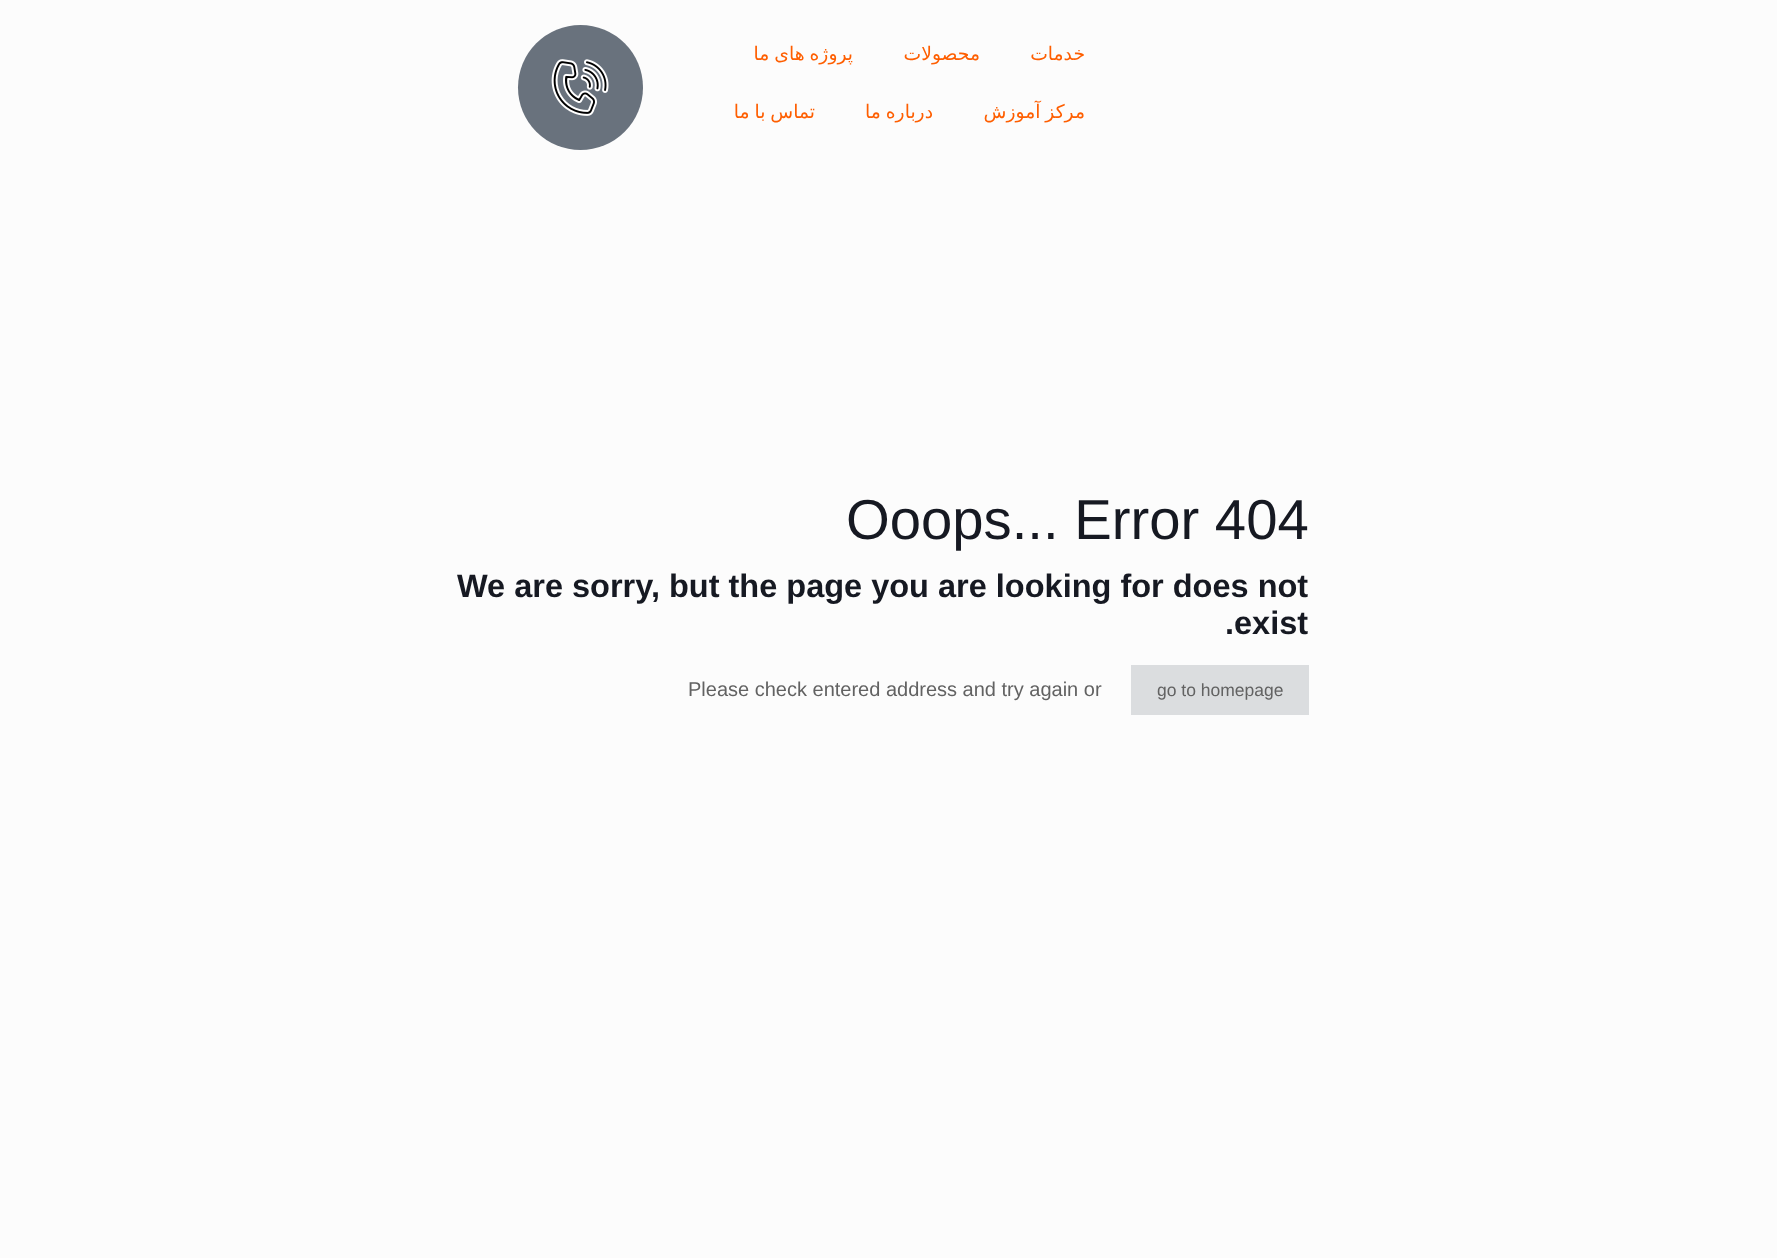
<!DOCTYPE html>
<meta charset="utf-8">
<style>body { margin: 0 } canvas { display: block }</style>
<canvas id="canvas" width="1777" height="1258"></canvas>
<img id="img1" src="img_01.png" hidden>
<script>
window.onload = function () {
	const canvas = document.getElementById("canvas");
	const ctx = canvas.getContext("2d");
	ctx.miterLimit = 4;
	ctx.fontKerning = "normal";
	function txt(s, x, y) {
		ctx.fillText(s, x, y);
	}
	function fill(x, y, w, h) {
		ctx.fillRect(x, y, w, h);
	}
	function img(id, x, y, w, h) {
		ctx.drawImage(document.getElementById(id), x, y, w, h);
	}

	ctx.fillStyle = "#FCFCFC";
	fill(0, 0, 1777, 1258);
	ctx.fillStyle = "#69727D";
	ctx.beginPath();
	ctx.arc(580.5, 87.5, 62.5, 0, Math.PI * 2);
	ctx.fill();
	img("img1", 551, 59, 58, 57);
	ctx.fillStyle = "#DBDDDF";
	fill(1131, 665, 178, 50);
	ctx.wordSpacing = "-1px";
	ctx.direction = "rtl";
	ctx.font = "18.75px DejaVu Sans";
	ctx.fillStyle = "#FE5E00";
	txt("پروژه های ما", 853, 60);
	ctx.wordSpacing = "0px";
	txt("محصولات", 980, 60);
	txt("خدمات", 1085, 60);
	ctx.wordSpacing = "-1px";
	txt("تماس با ما", 815, 118);
	txt("درباره ما", 933, 118);
	txt("مرکز آموزش", 1085, 118);
	ctx.wordSpacing = "0px";
	ctx.direction = "ltr";
	ctx.font = "56.25px Liberation Sans";
	ctx.fillStyle = "#161922";
	txt("Ooops... Error 404", 846, 539);
	ctx.font = "bold 32.5px Liberation Sans";
	txt("We are sorry, but the page you are looking for does not", 457, 597);
	txt(".exist", 1225, 634);
	ctx.font = "20px Liberation Sans";
	ctx.fillStyle = "#626262";
	txt("Please check entered address and try again or", 688, 696);
	ctx.font = "17.5px Liberation Sans";
	txt("go to homepage", 1157, 696);
};
</script>
